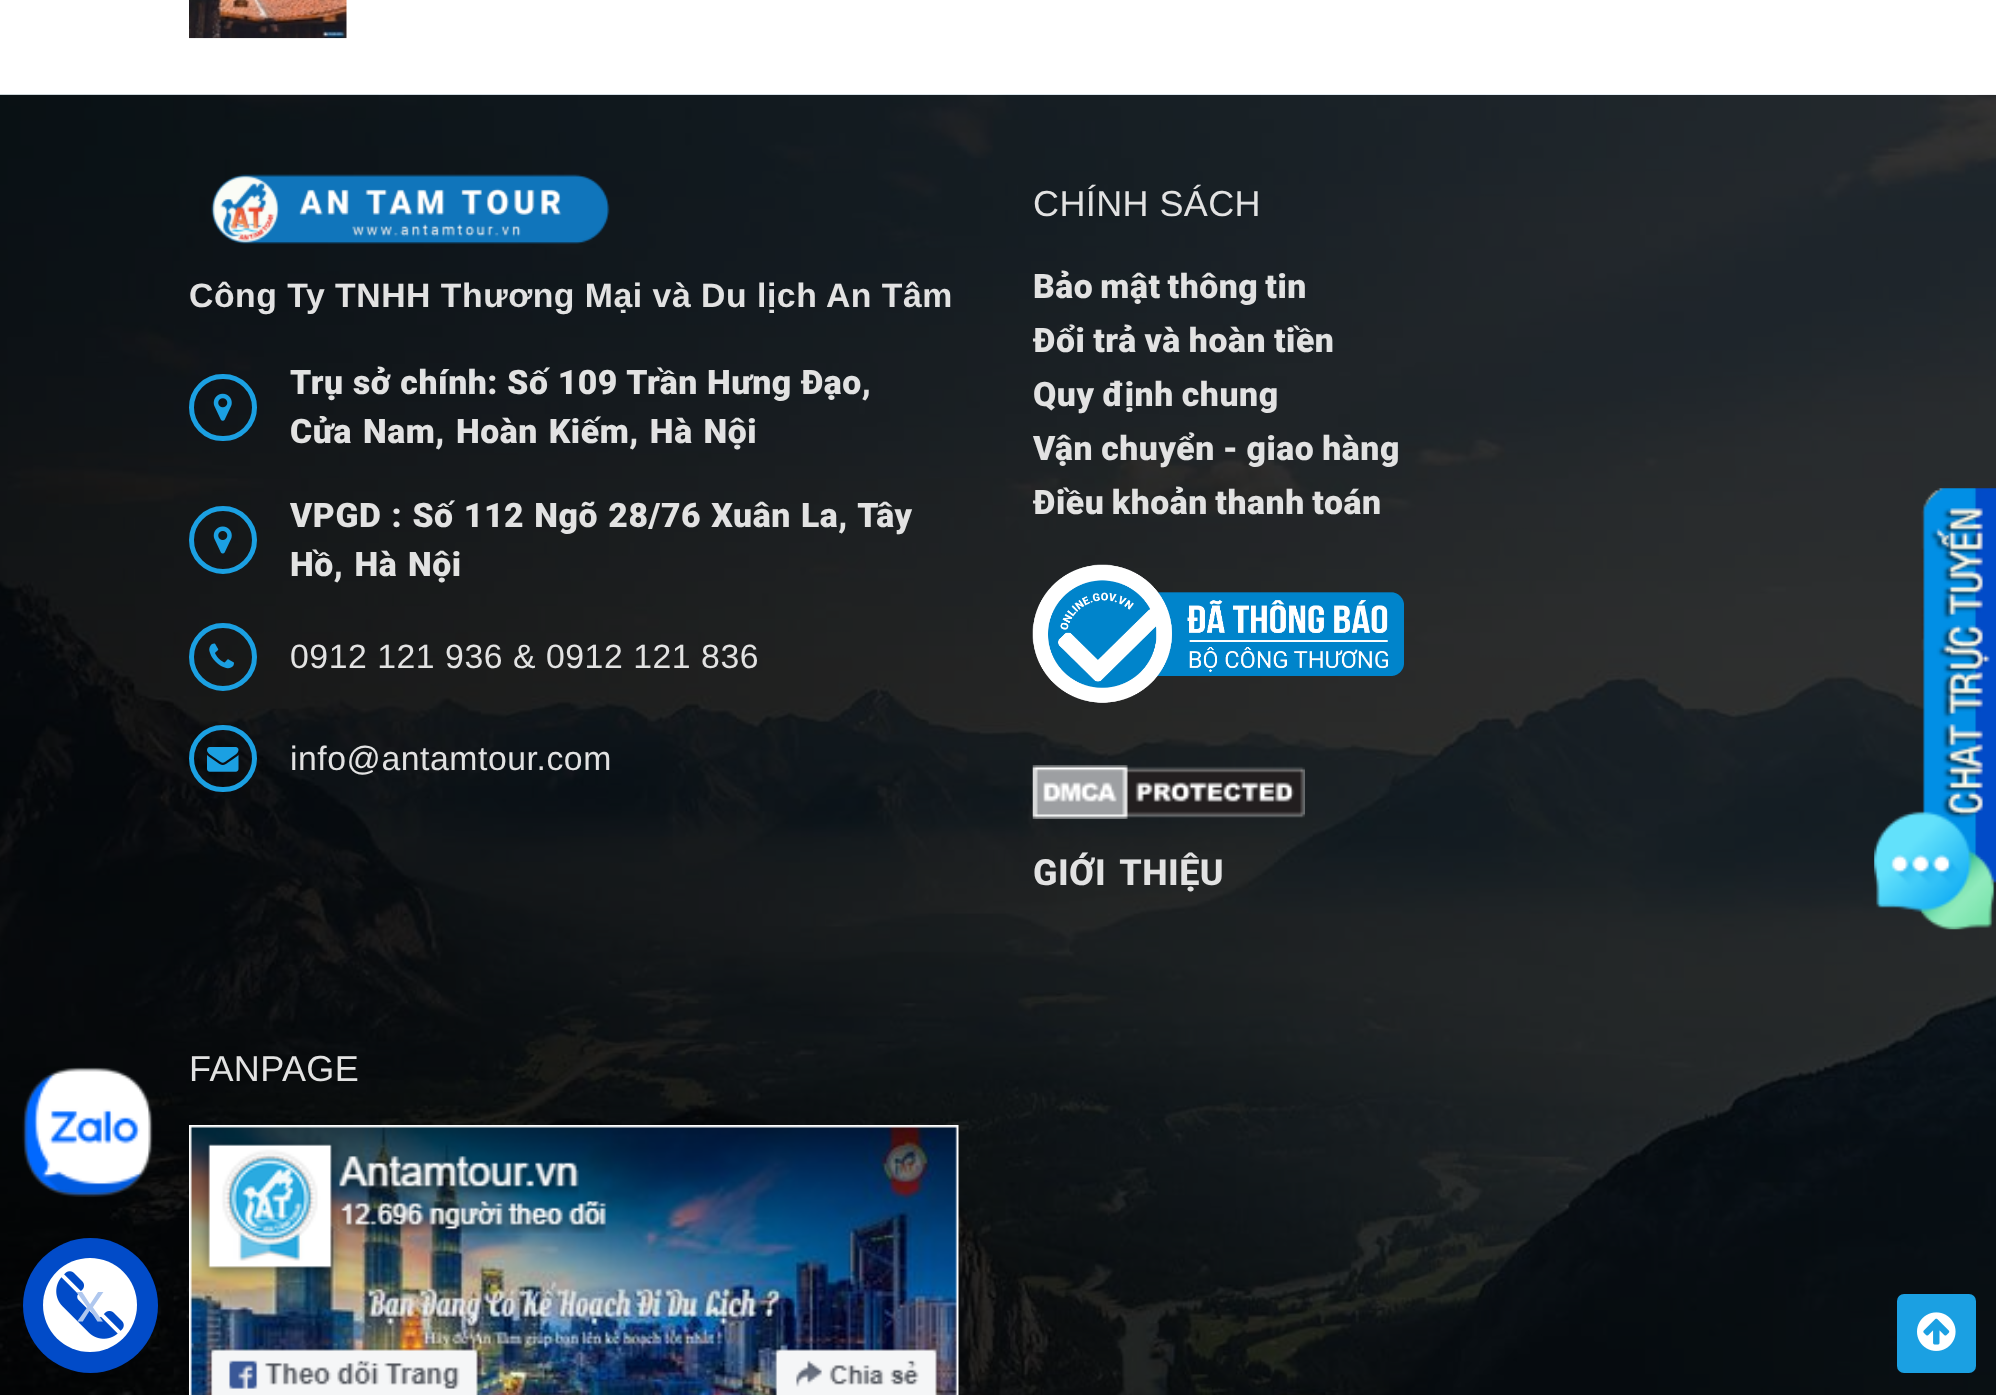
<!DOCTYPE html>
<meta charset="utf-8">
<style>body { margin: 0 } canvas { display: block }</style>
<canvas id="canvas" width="1996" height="1395"></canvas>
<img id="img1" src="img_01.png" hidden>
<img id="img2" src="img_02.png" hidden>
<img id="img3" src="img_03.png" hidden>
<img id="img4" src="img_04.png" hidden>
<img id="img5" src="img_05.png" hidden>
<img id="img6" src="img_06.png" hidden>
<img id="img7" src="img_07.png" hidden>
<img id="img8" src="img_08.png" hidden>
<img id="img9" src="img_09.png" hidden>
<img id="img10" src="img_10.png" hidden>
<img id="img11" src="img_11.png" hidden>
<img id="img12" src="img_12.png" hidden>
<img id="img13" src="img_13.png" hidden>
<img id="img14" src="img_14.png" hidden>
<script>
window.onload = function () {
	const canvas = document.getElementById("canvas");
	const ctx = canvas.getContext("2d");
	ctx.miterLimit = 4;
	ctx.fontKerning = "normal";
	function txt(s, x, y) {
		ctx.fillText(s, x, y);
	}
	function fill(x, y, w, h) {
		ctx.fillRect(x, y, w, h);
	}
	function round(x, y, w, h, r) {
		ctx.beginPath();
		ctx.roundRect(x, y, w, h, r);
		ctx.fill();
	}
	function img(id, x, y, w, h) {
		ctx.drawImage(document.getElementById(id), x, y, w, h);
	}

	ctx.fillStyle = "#FFFFFF";
	fill(0, 0, 1996, 1395);
	img("img1", 189, 0, 158, 39);
	img("img2", 0, 94, 1996, 1301);
	img("img3", 211, 174, 399, 70);
	ctx.beginPath();
	ctx.roundRect(191.5, 376.5, 63, 62, 31);
	ctx.strokeStyle = "#1BA0E2";
	ctx.lineWidth = 5;
	ctx.stroke();
	img("img4", 213, 393, 19, 28);
	ctx.beginPath();
	ctx.arc(223, 540, 31.5, 0, Math.PI * 2);
	ctx.stroke();
	img("img5", 213, 526, 19, 28);
	ctx.beginPath();
	ctx.arc(223, 657, 31.5, 0, Math.PI * 2);
	ctx.stroke();
	img("img6", 209, 643, 25, 26);
	ctx.beginPath();
	ctx.roundRect(191.5, 727.5, 63, 62, 31);
	ctx.stroke();
	img("img7", 207, 747, 32, 25);
	img("img8", 1032, 564, 372, 139);
	img("img9", 1032, 765, 273, 54);
	img("img10", 189, 1125, 770, 270);
	ctx.fillStyle = "#1BA0E2";
	round(1897, 1294, 79, 79, 7);
	img("img11", 1917, 1312, 39, 39);
	img("img12", 1874, 488, 122, 442);
	img("img13", 22, 1067, 131, 130);
	ctx.fillStyle = "#014BC8";
	ctx.beginPath();
	ctx.arc(90.5, 1305.5, 67.5, 0, Math.PI * 2);
	ctx.fill();
	ctx.fillStyle = "#FFFFFF";
	ctx.beginPath();
	ctx.arc(90, 1305, 47, 0, Math.PI * 2);
	ctx.fill();
	img("img14", 56, 1271, 68, 68);
	ctx.letterSpacing = "0.55px";
	ctx.wordSpacing = "-0.1px";
	ctx.font = "bold 33.75px Liberation Sans";
	ctx.fillStyle = "#E2E2E2";
	txt("Công Ty TNHH Thương Mại và Du lịch An Tâm", 189, 307);
	ctx.wordSpacing = "0.25px";
	ctx.font = "900 33.75px Roboto";
	txt("Trụ sở chính: Số 109 Trần Hưng Đạo,", 290, 394);
	ctx.wordSpacing = "2px";
	txt("Cửa Nam, Hoàn Kiếm, Hà Nội", 290, 443);
	ctx.wordSpacing = "1.25px";
	txt("VPGD : Số 112 Ngõ 28/76 Xuân La, Tây", 290, 527);
	ctx.wordSpacing = "2px";
	txt("Hồ, Hà Nội", 290, 576);
	ctx.wordSpacing = "0px";
	ctx.font = "33.75px Liberation Sans";
	txt("0912 121 936 & 0912 121 836", 290, 668);
	txt("info@antamtour.com", 290, 770);
	ctx.letterSpacing = "0.4px";
	ctx.font = "36px Liberation Sans";
	txt("CHÍNH SÁCH", 1033, 216);
	ctx.letterSpacing = "0.55px";
	ctx.wordSpacing = "-2px";
	ctx.font = "900 33.75px Roboto";
	txt("Bảo mật thông tin", 1033, 298);
	ctx.wordSpacing = "-1px";
	txt("Đổi trả và hoàn tiền", 1033, 352);
	txt("Quy định chung", 1033, 406);
	txt("Vận chuyển - giao hàng", 1033, 460);
	ctx.wordSpacing = "-1.5px";
	txt("Điều khoản thanh toán", 1033, 514);
	ctx.letterSpacing = "0.4px";
	ctx.wordSpacing = "5px";
	ctx.font = "800 36px Roboto";
	txt("GIỚI THIỆU", 1033, 885);
	ctx.wordSpacing = "0px";
	ctx.font = "36px Liberation Sans";
	txt("FANPAGE", 189, 1081);
	ctx.letterSpacing = "0.55px";
	ctx.font = "56px Liberation Sans";
	ctx.fillStyle = "#AFC7EE";
	ctx.save();
	ctx.translate(104, 1292);
	ctx.rotate(180 * Math.PI / 180);
	ctx.fillText("x", 0, 0);
	ctx.restore();
};
</script>
